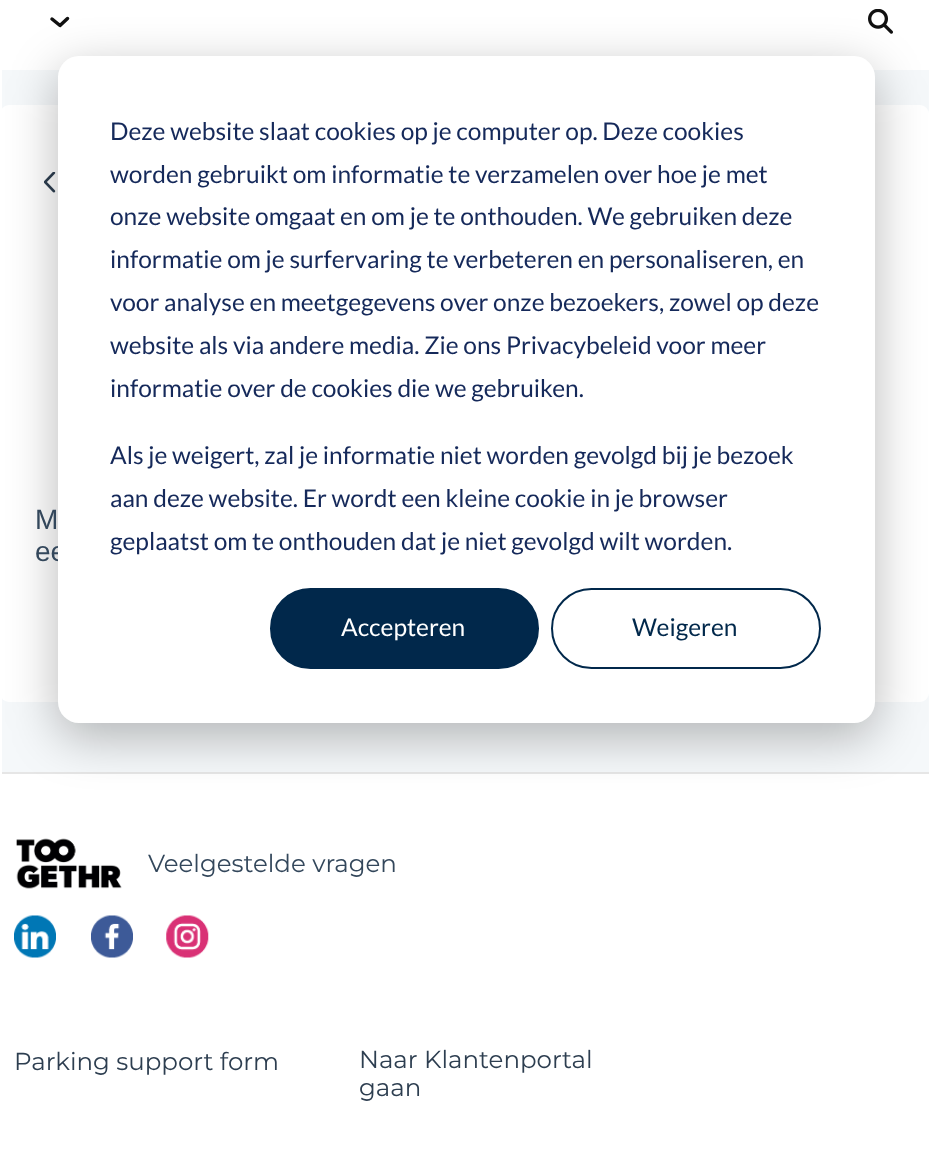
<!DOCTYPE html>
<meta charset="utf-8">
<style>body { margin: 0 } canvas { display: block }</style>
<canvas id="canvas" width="929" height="1157"></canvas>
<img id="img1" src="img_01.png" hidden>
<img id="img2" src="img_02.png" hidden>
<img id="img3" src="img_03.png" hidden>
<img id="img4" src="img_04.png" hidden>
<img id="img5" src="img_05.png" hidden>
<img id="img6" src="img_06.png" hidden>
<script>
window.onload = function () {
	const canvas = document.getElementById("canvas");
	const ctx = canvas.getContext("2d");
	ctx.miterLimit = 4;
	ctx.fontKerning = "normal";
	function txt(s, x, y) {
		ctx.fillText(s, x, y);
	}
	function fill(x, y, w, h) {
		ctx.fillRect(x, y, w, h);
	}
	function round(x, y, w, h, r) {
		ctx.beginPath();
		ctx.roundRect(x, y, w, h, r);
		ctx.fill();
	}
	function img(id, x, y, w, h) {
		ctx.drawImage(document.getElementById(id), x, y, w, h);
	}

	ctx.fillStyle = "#F5F8FA";
	fill(0, 0, 929, 1157);
	ctx.fillStyle = "#FFFFFF";
	round(0, 105, 929, 597, 9);
	ctx.fillStyle = "#E6E6E6";
	fill(0, 772, 929, 2);
	ctx.fillStyle = "#FFFFFF";
	fill(0, 0, 2, 774);
	fill(2, 0, 927, 70);
	ctx.beginPath();
	ctx.moveTo(67.5, 18.5);
	ctx.lineTo(60, 25.5);
	ctx.lineTo(52, 19);
	ctx.strokeStyle = "#111111";
	ctx.lineWidth = 3.5;
	ctx.lineCap = "round";
	ctx.lineJoin = "round";
	ctx.stroke();
	img("img1", 868, 9, 25, 25);
	img("img2", 44, 172, 12, 21);
	fill(0, 774, 929, 383);
	ctx.fillStyle = "rgba(0, 0, 0, 0.28)";
	ctx.filter = "blur(24.5px)";
	ctx.beginPath();
	ctx.roundRect(58, 70, 817, 667, 21);
	ctx.fill();
	ctx.filter = "none";
	img("img3", 16, 838, 106, 51);
	img("img4", 14, 915, 42, 43);
	img("img5", 91, 915, 42, 43);
	img("img6", 166, 915, 43, 43);
	ctx.font = "28px Liberation Sans";
	ctx.fillStyle = "#33475B";
	txt("M", 35, 529);
	txt("ee", 35, 561);
	ctx.fillStyle = "#FFFFFF";
	round(58, 56, 817, 667, 21);
	ctx.font = "24.5px Lato";
	ctx.fillStyle = "#15295A";
	txt("Deze website slaat cookies op je computer op. Deze cookies", 110, 140);
	txt("worden gebruikt om informatie te verzamelen over hoe je met", 110, 183);
	txt("onze website omgaat en om je te onthouden. We gebruiken deze", 110, 225);
	txt("informatie om je surfervaring te verbeteren en personaliseren, en", 110, 268);
	txt("voor analyse en meetgegevens over onze bezoekers, zowel op deze", 110, 311);
	txt("website als via andere media. Zie ons Privacybeleid voor meer", 110, 354);
	txt("informatie over de cookies die we gebruiken.", 110, 397);
	txt("Als je weigert, zal je informatie niet worden gevolgd bij je bezoek", 110, 464);
	txt("aan deze website. Er wordt een kleine cookie in je browser", 110, 507);
	txt("geplaatst om te onthouden dat je niet gevolgd wilt worden.", 110, 550);
	ctx.fillStyle = "#01284B";
	ctx.beginPath();
	ctx.roundRect(271, 589, 267, 79, 39.5);
	ctx.fill();
	ctx.strokeStyle = "#01284B";
	ctx.lineWidth = 2;
	ctx.lineJoin = "miter";
	ctx.stroke();
	ctx.fillStyle = "#FFFFFF";
	txt("Accepteren", 341, 636);
	ctx.beginPath();
	ctx.roundRect(552, 589, 268, 79, 39.5);
	ctx.stroke();
	ctx.fillStyle = "#01284B";
	txt("Weigeren", 632, 636);
	ctx.font = "24.5px Montserrat";
	ctx.fillStyle = "#33475B";
	txt("Veelgestelde vragen", 148, 872);
	ctx.fillStyle = "#2D3E50";
	txt("Parking support form", 14, 1070);
	txt("Naar Klantenportal", 359, 1068);
	txt("gaan", 359, 1096);
};
</script>
